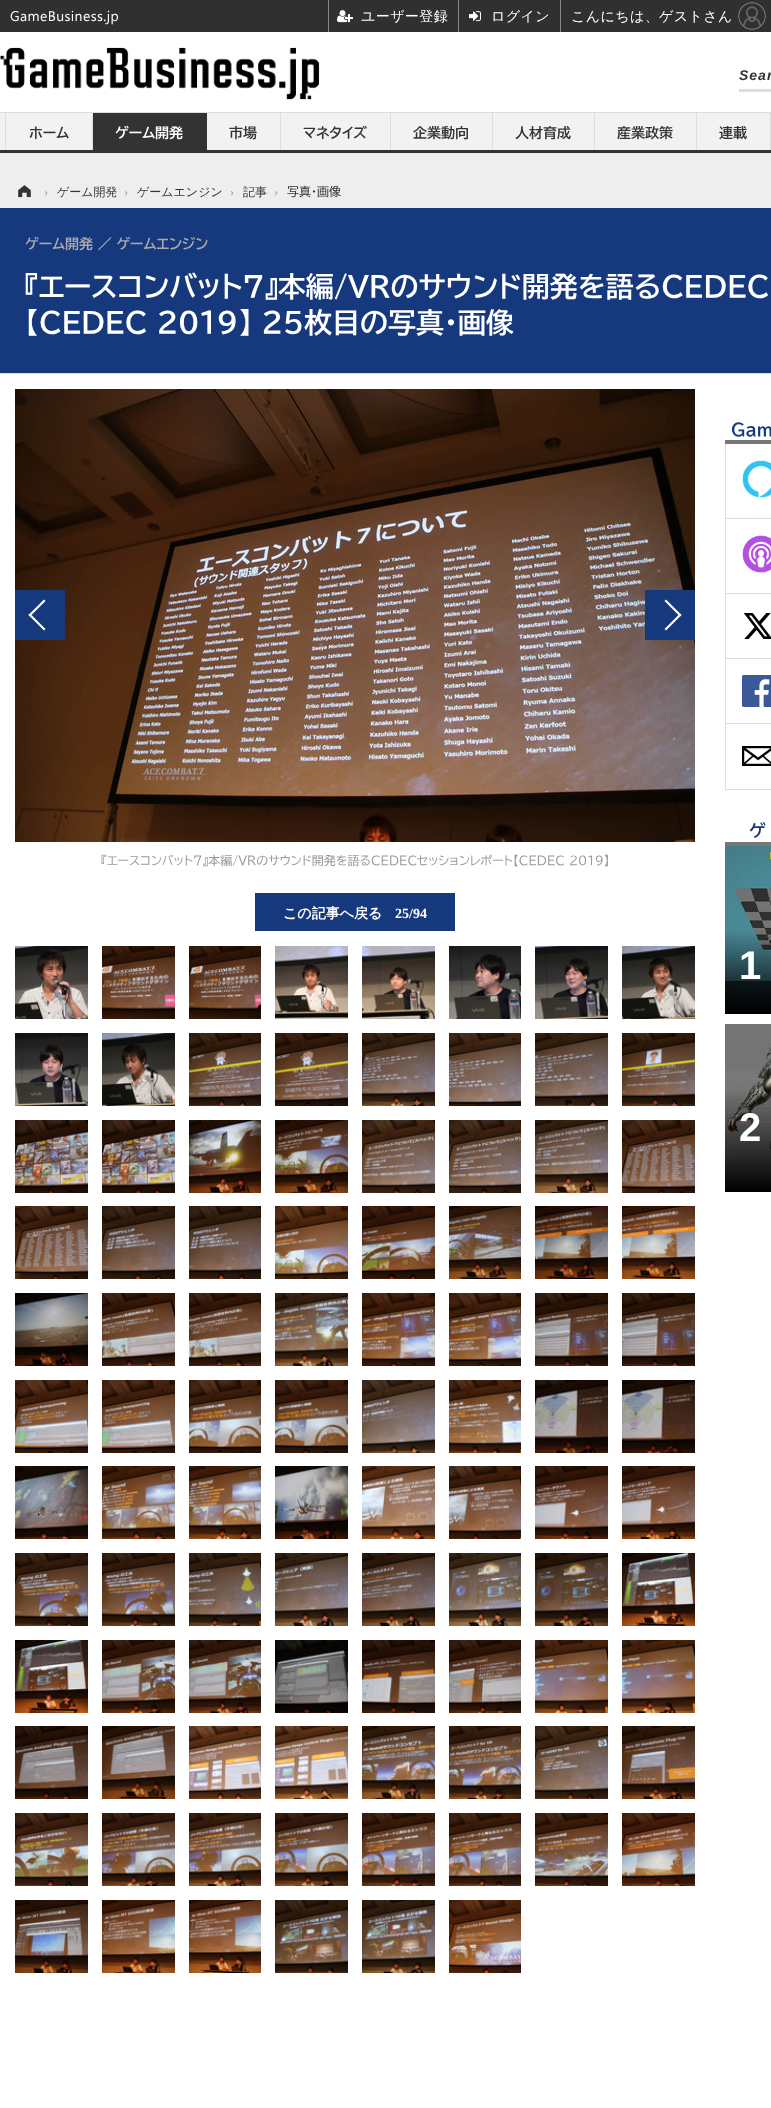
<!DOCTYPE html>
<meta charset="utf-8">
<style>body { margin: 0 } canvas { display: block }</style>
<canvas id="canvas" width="771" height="2108"></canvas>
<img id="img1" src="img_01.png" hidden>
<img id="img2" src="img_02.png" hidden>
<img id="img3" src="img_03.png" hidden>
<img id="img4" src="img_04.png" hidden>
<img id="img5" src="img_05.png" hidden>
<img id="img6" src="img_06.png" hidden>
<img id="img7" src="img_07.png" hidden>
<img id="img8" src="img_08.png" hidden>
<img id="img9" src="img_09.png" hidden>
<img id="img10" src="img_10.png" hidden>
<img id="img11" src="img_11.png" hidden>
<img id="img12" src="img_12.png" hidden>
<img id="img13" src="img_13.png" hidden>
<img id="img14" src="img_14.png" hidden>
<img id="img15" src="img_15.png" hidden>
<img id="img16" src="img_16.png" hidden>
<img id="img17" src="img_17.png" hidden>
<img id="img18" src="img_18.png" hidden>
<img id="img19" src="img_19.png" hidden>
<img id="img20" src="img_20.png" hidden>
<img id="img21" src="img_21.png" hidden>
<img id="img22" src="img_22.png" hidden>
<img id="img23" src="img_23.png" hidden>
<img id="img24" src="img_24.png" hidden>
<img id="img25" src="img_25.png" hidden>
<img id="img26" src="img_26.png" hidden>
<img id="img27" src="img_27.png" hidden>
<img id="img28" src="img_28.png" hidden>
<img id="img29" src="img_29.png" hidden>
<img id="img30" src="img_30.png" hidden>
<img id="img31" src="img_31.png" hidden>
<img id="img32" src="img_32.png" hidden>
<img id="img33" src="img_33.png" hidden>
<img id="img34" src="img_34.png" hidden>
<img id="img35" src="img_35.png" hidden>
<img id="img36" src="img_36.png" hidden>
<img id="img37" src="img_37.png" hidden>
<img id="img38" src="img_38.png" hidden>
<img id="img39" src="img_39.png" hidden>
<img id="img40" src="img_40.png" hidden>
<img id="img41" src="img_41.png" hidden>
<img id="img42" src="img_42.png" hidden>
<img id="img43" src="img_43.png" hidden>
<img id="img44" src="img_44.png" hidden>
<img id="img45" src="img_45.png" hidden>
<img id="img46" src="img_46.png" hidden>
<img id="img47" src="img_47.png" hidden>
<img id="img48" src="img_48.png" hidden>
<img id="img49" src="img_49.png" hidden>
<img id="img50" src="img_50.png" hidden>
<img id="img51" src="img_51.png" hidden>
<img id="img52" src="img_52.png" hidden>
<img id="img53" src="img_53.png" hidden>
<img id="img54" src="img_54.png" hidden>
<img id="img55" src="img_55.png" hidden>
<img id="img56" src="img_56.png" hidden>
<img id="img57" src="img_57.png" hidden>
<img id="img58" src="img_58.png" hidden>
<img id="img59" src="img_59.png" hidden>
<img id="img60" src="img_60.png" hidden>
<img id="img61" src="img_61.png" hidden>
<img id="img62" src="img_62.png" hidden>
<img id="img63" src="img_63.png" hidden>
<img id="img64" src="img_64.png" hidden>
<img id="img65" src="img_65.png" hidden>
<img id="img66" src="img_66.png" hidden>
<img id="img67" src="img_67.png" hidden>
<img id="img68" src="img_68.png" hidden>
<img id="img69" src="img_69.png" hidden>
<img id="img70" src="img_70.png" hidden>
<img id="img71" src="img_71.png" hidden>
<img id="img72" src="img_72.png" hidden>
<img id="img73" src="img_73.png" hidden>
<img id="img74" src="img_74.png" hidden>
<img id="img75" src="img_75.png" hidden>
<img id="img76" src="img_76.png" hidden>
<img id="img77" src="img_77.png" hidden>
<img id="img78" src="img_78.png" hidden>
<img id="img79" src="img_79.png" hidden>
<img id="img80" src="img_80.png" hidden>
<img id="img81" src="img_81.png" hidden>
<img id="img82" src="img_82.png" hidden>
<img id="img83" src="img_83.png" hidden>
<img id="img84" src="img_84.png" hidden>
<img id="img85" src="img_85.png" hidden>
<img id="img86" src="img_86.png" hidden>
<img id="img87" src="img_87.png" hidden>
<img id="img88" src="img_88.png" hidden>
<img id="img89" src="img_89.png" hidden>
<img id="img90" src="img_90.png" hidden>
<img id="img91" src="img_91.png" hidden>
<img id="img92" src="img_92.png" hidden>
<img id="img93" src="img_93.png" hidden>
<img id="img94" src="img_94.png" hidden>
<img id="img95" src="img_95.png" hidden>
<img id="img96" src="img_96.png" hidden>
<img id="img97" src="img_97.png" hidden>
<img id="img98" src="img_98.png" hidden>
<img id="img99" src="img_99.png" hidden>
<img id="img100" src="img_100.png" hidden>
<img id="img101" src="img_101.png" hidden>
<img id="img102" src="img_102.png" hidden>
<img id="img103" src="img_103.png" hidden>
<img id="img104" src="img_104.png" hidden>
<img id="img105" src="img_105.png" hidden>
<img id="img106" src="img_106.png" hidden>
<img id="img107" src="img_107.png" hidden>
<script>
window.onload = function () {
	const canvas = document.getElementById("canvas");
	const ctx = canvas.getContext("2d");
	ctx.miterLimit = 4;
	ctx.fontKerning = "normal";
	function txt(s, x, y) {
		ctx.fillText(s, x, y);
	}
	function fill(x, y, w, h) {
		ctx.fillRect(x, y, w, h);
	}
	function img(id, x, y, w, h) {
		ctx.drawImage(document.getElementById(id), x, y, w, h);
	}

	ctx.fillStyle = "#EEEEEE";
	fill(0, 0, 771, 2108);
	ctx.fillStyle = "#303030";
	fill(0, 0, 771, 32);
	ctx.fillStyle = "#888888";
	fill(328, 0, 1, 32);
	img("img1", 337, 10, 16, 13);
	fill(560, 0, 1, 32);
	fill(458, 0, 1, 32);
	img("img2", 469, 11, 12, 11);
	img("img3", 738, 2, 28, 28);
	ctx.fillStyle = "#FFFFFF";
	fill(0, 32, 771, 80);
	ctx.fillStyle = "#DDDDDD";
	fill(739, 89, 32, 3);
	img("img4", 0, 47, 320, 53);
	ctx.fillStyle = "#F2F2F2";
	fill(0, 113, 770, 37);
	ctx.fillStyle = "#DEDEDE";
	fill(0, 112, 771, 1);
	ctx.fillStyle = "#333333";
	fill(0, 150, 771, 3);
	ctx.fillStyle = "#DEDEDE";
	fill(92, 113, 1, 37);
	fill(5, 113, 1, 37);
	ctx.fillStyle = "#333333";
	fill(93, 113, 114, 37);
	ctx.fillStyle = "#DEDEDE";
	fill(280, 113, 1, 37);
	fill(390, 113, 1, 37);
	fill(492, 113, 1, 37);
	fill(594, 113, 1, 37);
	fill(696, 113, 1, 37);
	fill(770, 113, 1, 37);
	img("img5", 18, 185, 13, 13);
	ctx.fillStyle = "#16387C";
	fill(0, 208, 771, 165);
	ctx.fillStyle = "#DDDDDD";
	fill(0, 373, 771, 1);
	ctx.fillStyle = "#FFFFFF";
	fill(0, 374, 771, 1734);
	img("img6", 15, 389, 680, 453);
	ctx.fillStyle = "#16387C";
	fill(15, 590, 50, 50);
	ctx.fillStyle = "#FFFFFF";
	ctx.beginPath();
	ctx.moveTo(44, 630.5);
	ctx.lineTo(28.5, 615);
	ctx.lineTo(30, 613.5);
	ctx.lineTo(45.5, 629);
	ctx.closePath();
	ctx.fill();
	ctx.beginPath();
	ctx.moveTo(30, 616.5);
	ctx.lineTo(28.5, 615);
	ctx.lineTo(44, 599.5);
	ctx.lineTo(45.5, 601);
	ctx.closePath();
	ctx.fill();
	ctx.fillStyle = "#16387C";
	fill(645, 590, 50, 50);
	ctx.fillStyle = "#FFFFFF";
	ctx.beginPath();
	ctx.moveTo(666, 599.5);
	ctx.lineTo(681.5, 615);
	ctx.lineTo(680, 616.5);
	ctx.lineTo(664.5, 601);
	ctx.closePath();
	ctx.fill();
	ctx.beginPath();
	ctx.moveTo(680, 613.5);
	ctx.lineTo(681.5, 615);
	ctx.lineTo(666, 630.5);
	ctx.lineTo(664.5, 629);
	ctx.closePath();
	ctx.fill();
	ctx.fillStyle = "#16387C";
	fill(255, 893, 200, 38);
	img("img7", 15, 946, 73, 73);
	img("img8", 102, 946, 73, 73);
	img("img9", 189, 946, 72, 73);
	img("img10", 275, 946, 73, 73);
	img("img11", 362, 946, 73, 73);
	img("img12", 449, 946, 72, 73);
	img("img13", 535, 946, 73, 73);
	img("img14", 622, 946, 73, 73);
	img("img15", 15, 1033, 73, 73);
	img("img16", 102, 1033, 73, 73);
	img("img17", 189, 1033, 72, 73);
	img("img18", 275, 1033, 73, 73);
	img("img19", 362, 1033, 73, 73);
	img("img20", 449, 1033, 72, 73);
	img("img21", 535, 1033, 73, 73);
	img("img22", 622, 1033, 73, 73);
	img("img23", 15, 1120, 73, 73);
	img("img24", 102, 1120, 73, 73);
	img("img25", 189, 1120, 72, 73);
	img("img26", 275, 1120, 73, 73);
	img("img27", 362, 1120, 73, 73);
	img("img28", 449, 1120, 72, 73);
	img("img29", 535, 1120, 73, 73);
	img("img30", 622, 1120, 73, 73);
	img("img31", 15, 1206, 73, 73);
	img("img32", 102, 1206, 73, 73);
	img("img33", 189, 1206, 72, 73);
	img("img34", 275, 1206, 73, 73);
	img("img35", 362, 1206, 73, 73);
	img("img36", 449, 1206, 72, 73);
	img("img37", 535, 1206, 73, 73);
	img("img38", 622, 1206, 73, 73);
	img("img39", 15, 1293, 73, 73);
	img("img40", 102, 1293, 73, 73);
	img("img41", 189, 1293, 72, 73);
	img("img42", 275, 1293, 73, 73);
	img("img43", 362, 1293, 73, 73);
	img("img44", 449, 1293, 72, 73);
	img("img45", 535, 1293, 73, 73);
	img("img46", 622, 1293, 73, 73);
	img("img47", 15, 1380, 73, 73);
	img("img48", 102, 1380, 73, 73);
	img("img49", 189, 1380, 72, 73);
	img("img50", 275, 1380, 73, 73);
	img("img51", 362, 1380, 73, 73);
	img("img52", 449, 1380, 72, 73);
	img("img53", 535, 1380, 73, 73);
	img("img54", 622, 1380, 73, 73);
	img("img55", 15, 1466, 73, 73);
	img("img56", 102, 1466, 73, 73);
	img("img57", 189, 1466, 72, 73);
	img("img58", 275, 1466, 73, 73);
	img("img59", 362, 1466, 73, 73);
	img("img60", 449, 1466, 72, 73);
	img("img61", 535, 1466, 73, 73);
	img("img62", 622, 1466, 73, 73);
	img("img63", 15, 1553, 73, 73);
	img("img64", 102, 1553, 73, 73);
	img("img65", 189, 1553, 72, 73);
	img("img66", 275, 1553, 73, 73);
	img("img67", 362, 1553, 73, 73);
	img("img68", 449, 1553, 72, 73);
	img("img69", 535, 1553, 73, 73);
	img("img70", 622, 1553, 73, 73);
	img("img71", 15, 1640, 73, 73);
	img("img72", 102, 1640, 73, 73);
	img("img73", 189, 1640, 72, 73);
	img("img74", 275, 1640, 73, 73);
	img("img75", 362, 1640, 73, 73);
	img("img76", 449, 1640, 72, 73);
	img("img77", 535, 1640, 73, 73);
	img("img78", 622, 1640, 73, 73);
	img("img79", 15, 1726, 73, 73);
	img("img80", 102, 1726, 73, 73);
	img("img81", 189, 1726, 72, 73);
	img("img82", 275, 1726, 73, 73);
	img("img83", 362, 1726, 73, 73);
	img("img84", 449, 1726, 72, 73);
	img("img85", 535, 1726, 73, 73);
	img("img86", 622, 1726, 73, 73);
	img("img87", 15, 1813, 73, 73);
	img("img88", 102, 1813, 73, 73);
	img("img89", 189, 1813, 72, 73);
	img("img90", 275, 1813, 73, 73);
	img("img91", 362, 1813, 73, 73);
	img("img92", 449, 1813, 72, 73);
	img("img93", 535, 1813, 73, 73);
	img("img94", 622, 1813, 73, 73);
	img("img95", 15, 1900, 73, 73);
	img("img96", 102, 1900, 73, 73);
	img("img97", 189, 1900, 72, 73);
	img("img98", 275, 1900, 73, 73);
	img("img99", 362, 1900, 73, 73);
	img("img100", 449, 1900, 72, 73);
	ctx.fillStyle = "#777777";
	fill(725, 440, 46, 4);
	ctx.fillStyle = "#DDDDDD";
	fill(725, 518, 46, 1);
	fill(725, 444, 1, 75);
	img("img101", 742, 460, 29, 38);
	fill(725, 593, 46, 1);
	fill(725, 519, 1, 75);
	img("img102", 742, 535, 29, 38);
	fill(725, 658, 46, 1);
	fill(725, 594, 1, 65);
	img("img103", 743, 613, 28, 26);
	fill(725, 723, 46, 1);
	fill(725, 659, 1, 65);
	img("img104", 742, 675, 29, 32);
	fill(725, 789, 46, 1);
	fill(725, 724, 1, 66);
	img("img105", 742, 746, 29, 20);
	ctx.fillStyle = "#777777";
	fill(725, 842, 46, 4);
	img("img106", 725, 846, 46, 168);
	img("img107", 725, 1024, 46, 168);
	ctx.letterSpacing = "0.4px";
	ctx.font = "14px Segoe UI";
	ctx.fillStyle = "#FFFFFF";
	txt("GameBusiness.jp", 10, 21);
	ctx.font = "500 14px WenQuanYi Zen Hei";
	txt("ユーザー登録", 361, 21);
	txt("ログイン", 491, 21);
	txt("こんにちは、ゲストさん", 571, 21);
	ctx.letterSpacing = "1px";
	ctx.font = "italic bold 14px Liberation Sans";
	ctx.fillStyle = "#333333";
	txt("Sear", 739, 80);
	ctx.letterSpacing = "0px";
	ctx.font = "bold 14px BIZ UDPGothic";
	txt("ホーム", 29, 138);
	ctx.fillStyle = "#FFFFFF";
	txt("ゲーム開発", 115, 138);
	ctx.fillStyle = "#333333";
	txt("市場", 229, 138);
	txt("マネタイズ", 303, 138);
	txt("企業動向", 413, 138);
	txt("人材育成", 515, 138);
	txt("産業政策", 617, 138);
	txt("連載", 719, 138);
	ctx.font = "12px Liberation Serif";
	ctx.fillStyle = "#999999";
	txt("›", 44, 196);
	ctx.font = "500 12px WenQuanYi Zen Hei";
	ctx.fillStyle = "#333333";
	txt("ゲーム開発", 57, 196);
	ctx.font = "12px Liberation Serif";
	ctx.fillStyle = "#999999";
	txt("›", 124, 196);
	ctx.font = "500 12px WenQuanYi Zen Hei";
	ctx.fillStyle = "#333333";
	txt("ゲームエンジン", 137, 196);
	ctx.font = "12px Liberation Serif";
	ctx.fillStyle = "#999999";
	txt("›", 230, 196);
	ctx.font = "500 12px WenQuanYi Zen Hei";
	ctx.fillStyle = "#333333";
	txt("記事", 243, 196);
	ctx.font = "12px Liberation Serif";
	ctx.fillStyle = "#999999";
	txt("›", 274, 196);
	ctx.font = "12px BIZ UDPGothic";
	ctx.fillStyle = "#333333";
	txt("写真・画像", 287, 196);
	ctx.font = "bold 14px BIZ UDPGothic";
	ctx.fillStyle = "#AAAAAA";
	txt("ゲーム開発 ／ ゲームエンジン", 25, 249);
	ctx.font = "bold 28px BIZ UDPGothic";
	ctx.fillStyle = "#FFFFFF";
	txt("『エースコンバット7』本編/VRのサウンド開発を語るCEDEC", 25, 297);
	txt("【CEDEC 2019】 25枚目の写真・画像", 25, 333);
	ctx.font = "12px BIZ UDPGothic";
	ctx.fillStyle = "#999999";
	txt("『エースコンバット7』本編/VRのサウンド開発を語るCEDECセッションレポート【CEDEC 2019】", 101, 865);
	ctx.font = "bold 14px WenQuanYi Zen Hei";
	ctx.fillStyle = "#FFFFFF";
	txt("この記事へ戻る", 283, 918);
	ctx.font = "bold 14px Liberation Serif";
	txt("25/94", 395, 918);
	ctx.font = "bold 17px BIZ UDPGothic";
	ctx.fillStyle = "#16387C";
	txt("Gam", 731, 436);
	txt("ゲ", 749, 837);
	ctx.font = "bold 40px Liberation Sans";
	ctx.fillStyle = "#FFFFFF";
	txt("1", 739, 979);
	txt("2", 739, 1141);
};
</script>
